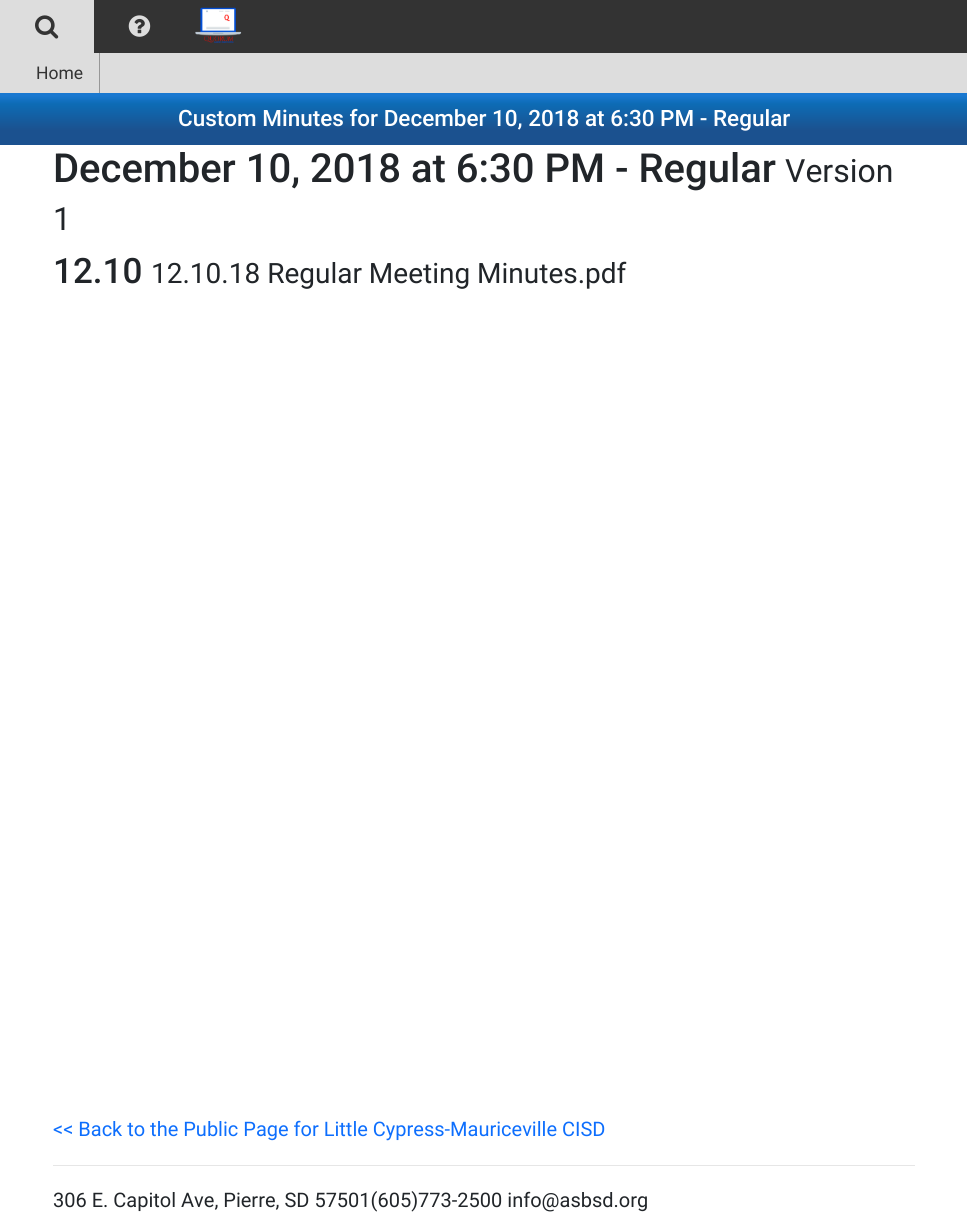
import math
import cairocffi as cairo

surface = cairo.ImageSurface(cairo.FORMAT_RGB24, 967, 1214)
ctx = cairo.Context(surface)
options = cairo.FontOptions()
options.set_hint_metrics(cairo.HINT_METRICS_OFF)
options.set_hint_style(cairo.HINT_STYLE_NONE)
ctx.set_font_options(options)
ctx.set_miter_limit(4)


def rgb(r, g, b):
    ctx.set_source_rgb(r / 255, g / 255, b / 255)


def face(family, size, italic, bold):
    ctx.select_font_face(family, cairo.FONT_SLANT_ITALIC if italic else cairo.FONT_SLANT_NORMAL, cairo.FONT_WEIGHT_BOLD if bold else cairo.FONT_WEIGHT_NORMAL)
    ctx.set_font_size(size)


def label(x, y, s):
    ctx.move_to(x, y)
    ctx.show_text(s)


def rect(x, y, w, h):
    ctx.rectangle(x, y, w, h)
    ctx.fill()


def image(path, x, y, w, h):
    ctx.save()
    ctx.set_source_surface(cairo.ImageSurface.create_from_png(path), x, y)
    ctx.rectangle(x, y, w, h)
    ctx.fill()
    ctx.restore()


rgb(255, 255, 255)
ctx.paint()
rgb(51, 51, 51)
rect(94, 0, 873, 53)
rgb(221, 221, 221)
rect(0, 0, 94, 53)
image('image0.png', 35, 15, 24, 24)
image('image1.png', 128, 15, 23, 22)
image('image2.png', 195, 7, 47, 36)
rect(0, 53, 967, 40)
rgb(151, 151, 151)
rect(99, 53, 1, 40)
face('Roboto', 17.5, 0, 0)
rgb(51, 51, 51)
label(36, 79, 'Home')
gradient = cairo.LinearGradient(484, 145, 484, 93)
gradient.add_color_stop_rgba(0.29, 0.106, 0.318, 0.561, 1)
gradient.add_color_stop_rgba(0.79, 0.051, 0.42, 0.71, 1)
gradient.add_color_stop_rgba(0.95, 0.098, 0.471, 0.816, 1)
ctx.set_source(gradient)
rect(0, 93, 967, 52)
face('Roboto Medium', 22.5, 0, 0)
rgb(255, 255, 255)
label(178, 126, 'Custom Minutes for December 10, 2018 at 6:30 PM - Regular')
face('Roboto Medium', 40, 0, 0)
rgb(33, 37, 41)
label(53, 182, 'December 10, 2018 at 6:30 PM - Regular')
face('Roboto', 32, 0, 0)
label(785, 182, 'Version')
label(53, 230, '1')
face('Roboto Medium', 35, 0, 0)
label(53, 283, '12.10')
face('Roboto', 28, 0, 0)
label(151, 283, '12.10.18 Regular Meeting Minutes.pdf')
face('Roboto', 20, 0, 0)
rgb(13, 110, 253)
label(53, 1136, '<< Back to the Public Page for Little Cypress-Mauriceville CISD')
rgb(230, 230, 230)
rect(53, 1165, 862, 1)
rgb(33, 37, 41)
label(53, 1207, '306 E. Capitol Ave, Pierre, SD 57501(605)773-2500 info@asbsd.org')
surface.write_to_png('render.png')
